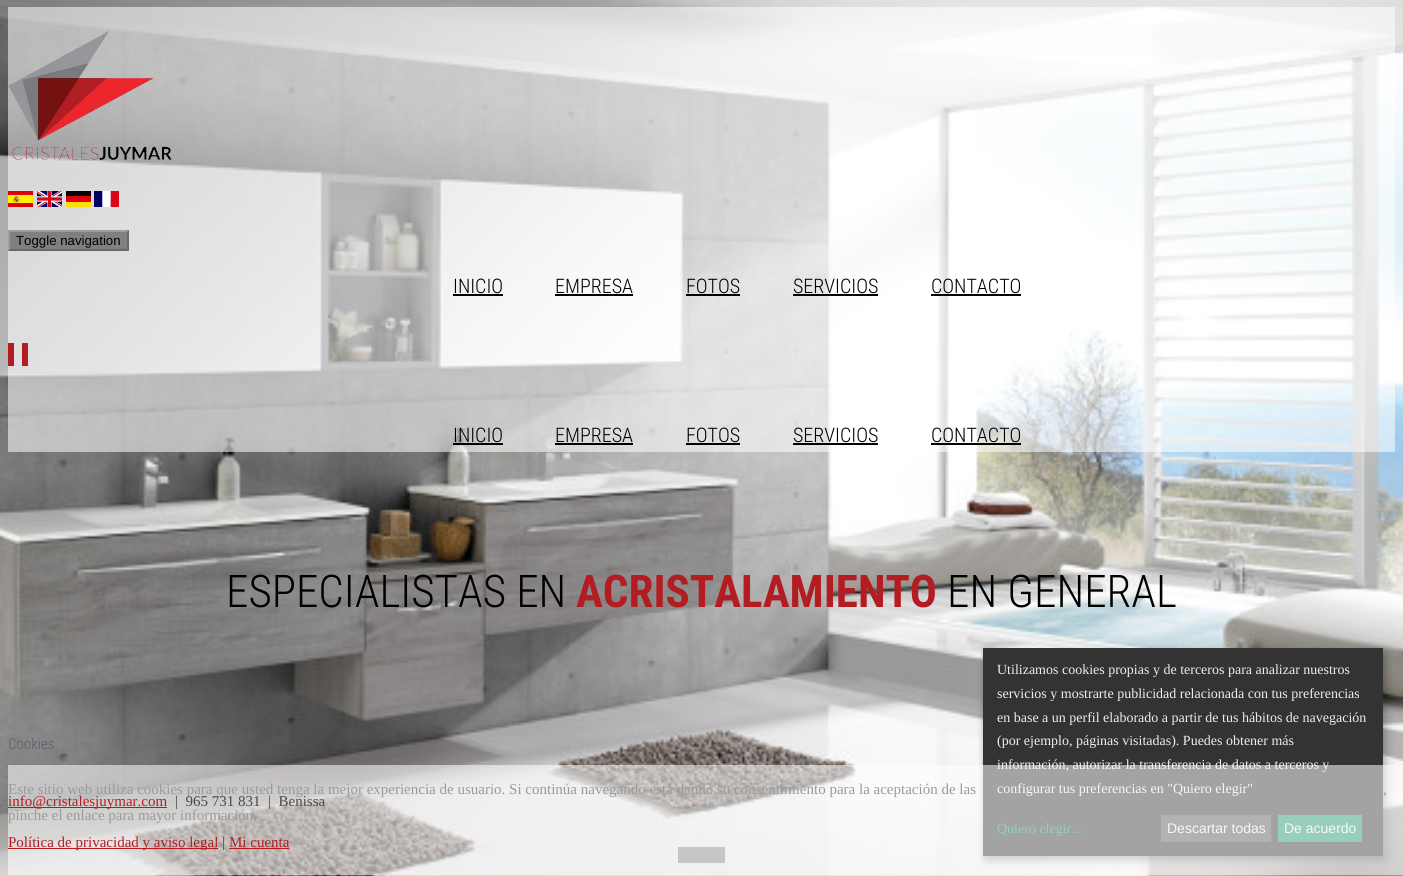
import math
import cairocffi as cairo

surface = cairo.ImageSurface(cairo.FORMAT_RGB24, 1403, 876)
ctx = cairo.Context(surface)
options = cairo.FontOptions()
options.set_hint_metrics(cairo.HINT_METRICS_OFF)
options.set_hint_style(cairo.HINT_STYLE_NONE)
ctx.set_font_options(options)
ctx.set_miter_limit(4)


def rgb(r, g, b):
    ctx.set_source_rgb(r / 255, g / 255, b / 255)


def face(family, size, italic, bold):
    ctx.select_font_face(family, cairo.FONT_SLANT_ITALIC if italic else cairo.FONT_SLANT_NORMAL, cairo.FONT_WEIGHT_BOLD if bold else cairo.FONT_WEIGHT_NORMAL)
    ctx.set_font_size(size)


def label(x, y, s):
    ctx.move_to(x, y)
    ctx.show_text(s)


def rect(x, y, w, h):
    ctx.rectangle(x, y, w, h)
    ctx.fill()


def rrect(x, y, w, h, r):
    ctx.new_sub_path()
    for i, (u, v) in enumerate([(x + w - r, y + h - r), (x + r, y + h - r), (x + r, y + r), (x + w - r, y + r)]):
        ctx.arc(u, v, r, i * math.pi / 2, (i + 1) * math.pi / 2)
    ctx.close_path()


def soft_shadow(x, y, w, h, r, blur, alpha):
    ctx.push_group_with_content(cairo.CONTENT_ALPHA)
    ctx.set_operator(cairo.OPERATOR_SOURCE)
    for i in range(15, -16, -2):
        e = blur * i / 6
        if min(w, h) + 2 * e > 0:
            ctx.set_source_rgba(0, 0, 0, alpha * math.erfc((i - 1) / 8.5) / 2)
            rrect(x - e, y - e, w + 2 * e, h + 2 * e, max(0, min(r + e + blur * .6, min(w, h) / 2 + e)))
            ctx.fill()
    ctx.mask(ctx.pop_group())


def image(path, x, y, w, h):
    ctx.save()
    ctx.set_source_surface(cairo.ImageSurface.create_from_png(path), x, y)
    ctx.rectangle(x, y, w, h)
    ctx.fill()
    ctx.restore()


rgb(255, 255, 255)
ctx.paint()
image('image0.png', 0, 0, 1403, 876)
ctx.set_source_rgba(1, 1, 1, 0.55)
rect(8, 7, 1387, 445)
image('image1.png', 8, 31, 164, 129)
image('image2.png', 8, 191, 25, 16)
image('image3.png', 37, 191, 25, 16)
image('image4.png', 66, 191, 25, 16)
image('image5.png', 94, 191, 25, 16)
rgb(128, 128, 128)
rect(8, 230, 121, 21)
rgb(157, 157, 157)
ctx.new_path()
ctx.move_to(8, 230)
ctx.line_to(129, 230)
ctx.line_to(127, 232)
ctx.line_to(10, 232)
ctx.close_path()
ctx.fill()
rgb(105, 105, 105)
ctx.new_path()
ctx.move_to(129, 230)
ctx.line_to(129, 251)
ctx.line_to(127, 249)
ctx.line_to(127, 232)
ctx.close_path()
ctx.fill()
ctx.new_path()
ctx.move_to(129, 251)
ctx.line_to(8, 251)
ctx.line_to(10, 249)
ctx.line_to(127, 249)
ctx.close_path()
ctx.fill()
rgb(157, 157, 157)
ctx.new_path()
ctx.move_to(8, 251)
ctx.line_to(8, 230)
ctx.line_to(10, 232)
ctx.line_to(10, 249)
ctx.close_path()
ctx.fill()
face('Liberation Sans', 13.25, 0, 0)
rgb(0, 0, 0)
label(16, 245, 'Toggle navigation')
face('Roboto Condensed Light', 20, 0, 0)
label(453, 293, 'INICIO')
rect(453, 294, 50, 2)
label(555, 293, 'EMPRESA')
rect(555, 294, 78, 2)
label(686, 293, 'FOTOS')
rect(686, 294, 54, 2)
label(793, 293, 'SERVICIOS')
rect(793, 294, 85, 2)
label(931, 293, 'CONTACTO')
rect(931, 294, 90, 2)
rgb(179, 29, 34)
rect(8, 343, 6, 23)
rect(22, 343, 6, 23)
rgb(0, 0, 0)
label(453, 442, 'INICIO')
rect(453, 443, 50, 2)
label(555, 442, 'EMPRESA')
rect(555, 443, 78, 2)
label(686, 442, 'FOTOS')
rect(686, 443, 54, 2)
label(793, 442, 'SERVICIOS')
rect(793, 443, 85, 2)
label(931, 442, 'CONTACTO')
rect(931, 443, 90, 2)
face('Roboto Condensed Light', 45, 0, 0)
label(226, 607, 'ESPECIALISTAS EN')
face('Roboto Condensed', 45, 0, 1)
rgb(179, 29, 34)
label(576, 607, 'ACRISTALAMIENTO')
face('Roboto Condensed Light', 45, 0, 0)
rgb(0, 0, 0)
label(947, 607, 'EN GENERAL')
rgb(0, 0, 0)
soft_shadow(988, 653, 400, 208, 0, 5, 0.19)
soft_shadow(983, 652, 400, 208, 0, 3, 0.2)
rgb(51, 51, 51)
rect(983, 648, 400, 208)
face('Liberation Serif', 14, 0, 0)
rgb(238, 238, 238)
label(997, 769, 'información, autorizar la transferencia de datos a terceros y')
label(997, 793, 'configurar tus preferencias en "Quiero elegir"')
rgb(26, 147, 111)
label(997, 833, 'Quiero elegir...')
rgb(85, 85, 85)
rect(1161, 815, 110, 27)
face('Liberation Sans', 14, 0, 0)
rgb(238, 238, 238)
label(1167, 833, 'Descartar todas')
rgb(26, 147, 111)
rect(1278, 815, 84, 27)
rgb(238, 238, 238)
label(1284, 833, 'De acuerdo')
face('Liberation Serif', 15, 0, 0)
rgb(33, 32, 32)
label(8, 794, 'Este sitio web utiliza cookies para que usted tenga la mejor experiencia de usuario. Si continúa navegando está dando su consentimiento para la aceptación de las')
label(1383, 794, ',')
label(8, 820, 'pinche el enlace para mayor información')
rgb(128, 128, 128)
rect(678, 847, 47, 16)
ctx.set_source_rgba(1, 1, 1, 0.55)
rect(8, 765, 1395, 110)
rgb(179, 29, 34)
rect(8, 807, 159, 1)
label(8, 806, 'info@cristalesjuymar.com')
rgb(74, 74, 74)
label(175, 806, '|  965 731 831  |  Benissa')
rgb(179, 29, 34)
rect(8, 848, 210, 1)
label(8, 847, 'Política de privacidad y aviso legal')
rgb(74, 74, 74)
label(222, 847, '|')
rgb(179, 29, 34)
label(229, 847, 'Mi cuenta')
rect(229, 848, 60, 1)
face('Liberation Serif', 14, 0, 0)
rgb(238, 238, 238)
label(997, 674, 'Utilizamos cookies propias y de terceros para analizar nuestros')
label(997, 698, 'servicios y mostrarte publicidad relacionada con tus preferencias')
label(997, 722, 'en base a un perfil elaborado a partir de tus hábitos de navegación')
label(997, 745, '(por ejemplo, páginas visitadas). Puedes obtener más')
face('Roboto Condensed Light', 15, 0, 0)
rgb(88, 95, 105)
label(8, 749, 'Cookies')
surface.write_to_png('render.png')
